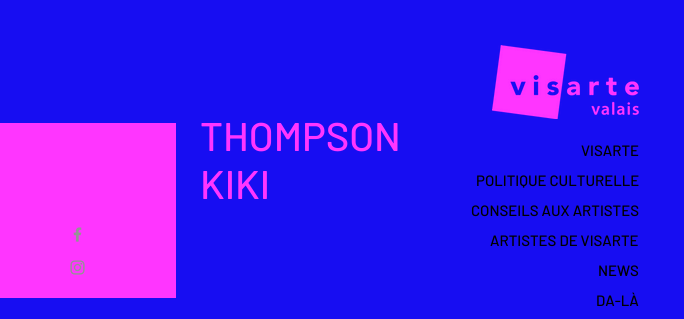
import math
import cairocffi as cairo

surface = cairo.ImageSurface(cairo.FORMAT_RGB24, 684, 319)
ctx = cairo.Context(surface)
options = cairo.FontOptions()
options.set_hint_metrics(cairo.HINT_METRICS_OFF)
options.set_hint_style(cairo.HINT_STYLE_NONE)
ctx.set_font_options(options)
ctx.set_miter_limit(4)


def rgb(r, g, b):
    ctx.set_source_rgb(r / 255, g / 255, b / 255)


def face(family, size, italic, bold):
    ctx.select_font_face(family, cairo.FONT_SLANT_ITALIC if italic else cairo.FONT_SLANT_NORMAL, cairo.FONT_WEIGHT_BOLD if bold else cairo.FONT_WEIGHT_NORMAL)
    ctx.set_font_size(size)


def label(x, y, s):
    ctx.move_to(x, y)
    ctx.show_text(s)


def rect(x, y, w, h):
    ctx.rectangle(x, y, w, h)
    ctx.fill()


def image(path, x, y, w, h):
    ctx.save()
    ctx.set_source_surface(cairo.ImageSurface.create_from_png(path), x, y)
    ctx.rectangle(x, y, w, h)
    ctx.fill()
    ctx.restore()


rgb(23, 13, 242)
ctx.paint()
rgb(255, 53, 255)
rect(0, 123, 176, 175)
image('image0.png', 73, 227, 9, 15)
image('image1.png', 70, 260, 15, 15)
face('Barlow Medium', 40, 0, 0)
label(200, 151, 'THOMPSON')
label(200, 199, 'KIKI')
image('image2.png', 492, 45, 147, 74)
face('Barlow Medium', 15, 0, 0)
rgb(0, 0, 0)
label(581, 156, 'VISARTE')
label(476, 186, 'POLITIQUE CULTURELLE')
label(471, 216, 'CONSEILS AUX ARTISTES')
label(490, 246, 'ARTISTES DE VISARTE')
label(598, 276, 'NEWS')
label(596, 306, 'DA-LÀ')
surface.write_to_png('render.png')
